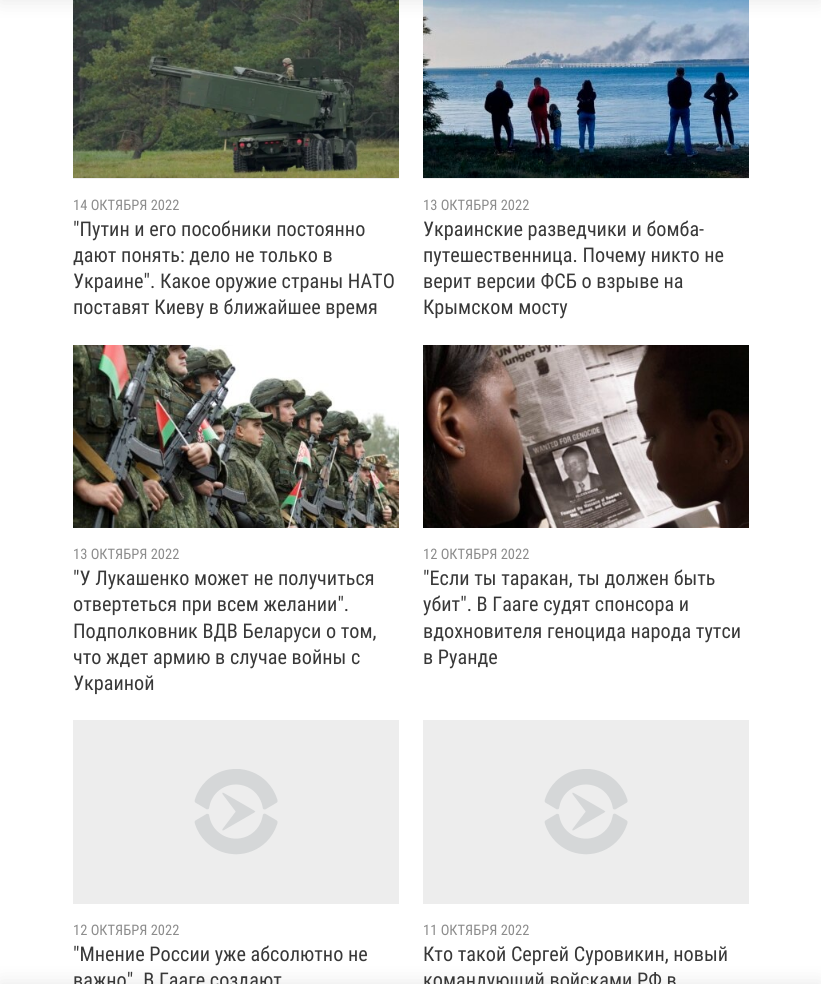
import math
import cairocffi as cairo

surface = cairo.ImageSurface(cairo.FORMAT_RGB24, 821, 984)
ctx = cairo.Context(surface)
options = cairo.FontOptions()
options.set_hint_metrics(cairo.HINT_METRICS_OFF)
options.set_hint_style(cairo.HINT_STYLE_NONE)
ctx.set_font_options(options)
ctx.set_miter_limit(4)


def rgb(r, g, b):
    ctx.set_source_rgb(r / 255, g / 255, b / 255)


def face(family, size, italic, bold):
    ctx.select_font_face(family, cairo.FONT_SLANT_ITALIC if italic else cairo.FONT_SLANT_NORMAL, cairo.FONT_WEIGHT_BOLD if bold else cairo.FONT_WEIGHT_NORMAL)
    ctx.set_font_size(size)


def label(x, y, s):
    ctx.move_to(x, y)
    ctx.show_text(s)


def rect(x, y, w, h):
    ctx.rectangle(x, y, w, h)
    ctx.fill()


def rrect(x, y, w, h, r):
    ctx.new_sub_path()
    for i, (u, v) in enumerate([(x + w - r, y + h - r), (x + r, y + h - r), (x + r, y + r), (x + w - r, y + r)]):
        ctx.arc(u, v, r, i * math.pi / 2, (i + 1) * math.pi / 2)
    ctx.close_path()


def soft_shadow(x, y, w, h, r, blur, alpha):
    ctx.push_group_with_content(cairo.CONTENT_ALPHA)
    ctx.set_operator(cairo.OPERATOR_SOURCE)
    for i in range(15, -16, -2):
        e = blur * i / 6
        if min(w, h) + 2 * e > 0:
            ctx.set_source_rgba(0, 0, 0, alpha * math.erfc((i - 1) / 8.5) / 2)
            rrect(x - e, y - e, w + 2 * e, h + 2 * e, max(0, min(r + e + blur * .6, min(w, h) / 2 + e)))
            ctx.fill()
    ctx.mask(ctx.pop_group())


def image(path, x, y, w, h):
    ctx.save()
    ctx.set_source_surface(cairo.ImageSurface.create_from_png(path), x, y)
    ctx.rectangle(x, y, w, h)
    ctx.fill()
    ctx.restore()


rgb(255, 255, 255)
ctx.paint()
image('image0.png', 73, 0, 326, 178)
image('image1.png', 423, 0, 326, 178)
rgb(0, 0, 0)
soft_shadow(0, -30, 821, 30, 0, 10, 0.1)
soft_shadow(0, 984, 821, 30, 0, 10, 0.1)
rgb(237, 237, 237)
rect(73, 178, 326, 1)
face('Roboto Condensed', 14.5, 0, 0)
rgb(140, 140, 140)
label(73, 210, '14 ОКТЯБРЯ 2022')
face('Roboto Condensed', 20.25, 0, 0)
rgb(56, 56, 56)
label(73, 236, '"Путин и его пособники постоянно')
label(73, 262, 'дают понять: дело не только в')
label(73, 288, 'Украине". Какое оружие страны НАТО')
label(73, 314, 'поставят Киеву в ближайшее время')
rgb(237, 237, 237)
rect(423, 178, 326, 1)
face('Roboto Condensed', 14.5, 0, 0)
rgb(140, 140, 140)
label(423, 210, '13 ОКТЯБРЯ 2022')
face('Roboto Condensed', 20.25, 0, 0)
rgb(56, 56, 56)
label(423, 236, 'Украинские разведчики и бомба-')
label(423, 262, 'путешественница. Почему никто не')
label(423, 288, 'верит версии ФСБ о взрыве на')
label(423, 314, 'Крымском мосту')
image('image2.png', 73, 345, 326, 183)
face('Roboto Condensed', 14.5, 0, 0)
rgb(140, 140, 140)
label(73, 559, '13 ОКТЯБРЯ 2022')
face('Roboto Condensed', 20.25, 0, 0)
rgb(56, 56, 56)
label(73, 585, '"У Лукашенко может не получиться')
label(73, 611, 'отвертеться при всем желании".')
label(73, 638, 'Подполковник ВДВ Беларуси о том,')
label(73, 664, 'что ждет армию в случае войны с')
label(73, 690, 'Украиной')
image('image3.png', 423, 345, 326, 183)
face('Roboto Condensed', 14.5, 0, 0)
rgb(140, 140, 140)
label(423, 559, '12 ОКТЯБРЯ 2022')
face('Roboto Condensed', 20.25, 0, 0)
rgb(56, 56, 56)
label(423, 585, '"Если ты таракан, ты должен быть')
label(423, 611, 'убит". В Гааге судят спонсора и')
label(423, 638, 'вдохновителя геноцида народа тутси')
label(423, 664, 'в Руанде')
rgb(237, 237, 237)
rect(73, 720, 326, 184)
image('image4.png', 194, 769, 84, 86)
face('Roboto Condensed', 14.5, 0, 0)
rgb(140, 140, 140)
label(73, 935, '12 ОКТЯБРЯ 2022')
face('Roboto Condensed', 20.25, 0, 0)
rgb(56, 56, 56)
label(73, 961, '"Мнение России уже абсолютно не')
label(73, 987, 'важно". В Гааге создают')
rgb(237, 237, 237)
rect(423, 720, 326, 184)
image('image4.png', 544, 769, 84, 86)
face('Roboto Condensed', 14.5, 0, 0)
rgb(140, 140, 140)
label(423, 935, '11 ОКТЯБРЯ 2022')
face('Roboto Condensed', 20.25, 0, 0)
rgb(56, 56, 56)
label(423, 961, 'Кто такой Сергей Суровикин, новый')
label(423, 987, 'командующий войсками РФ в')
surface.write_to_png('render.png')
